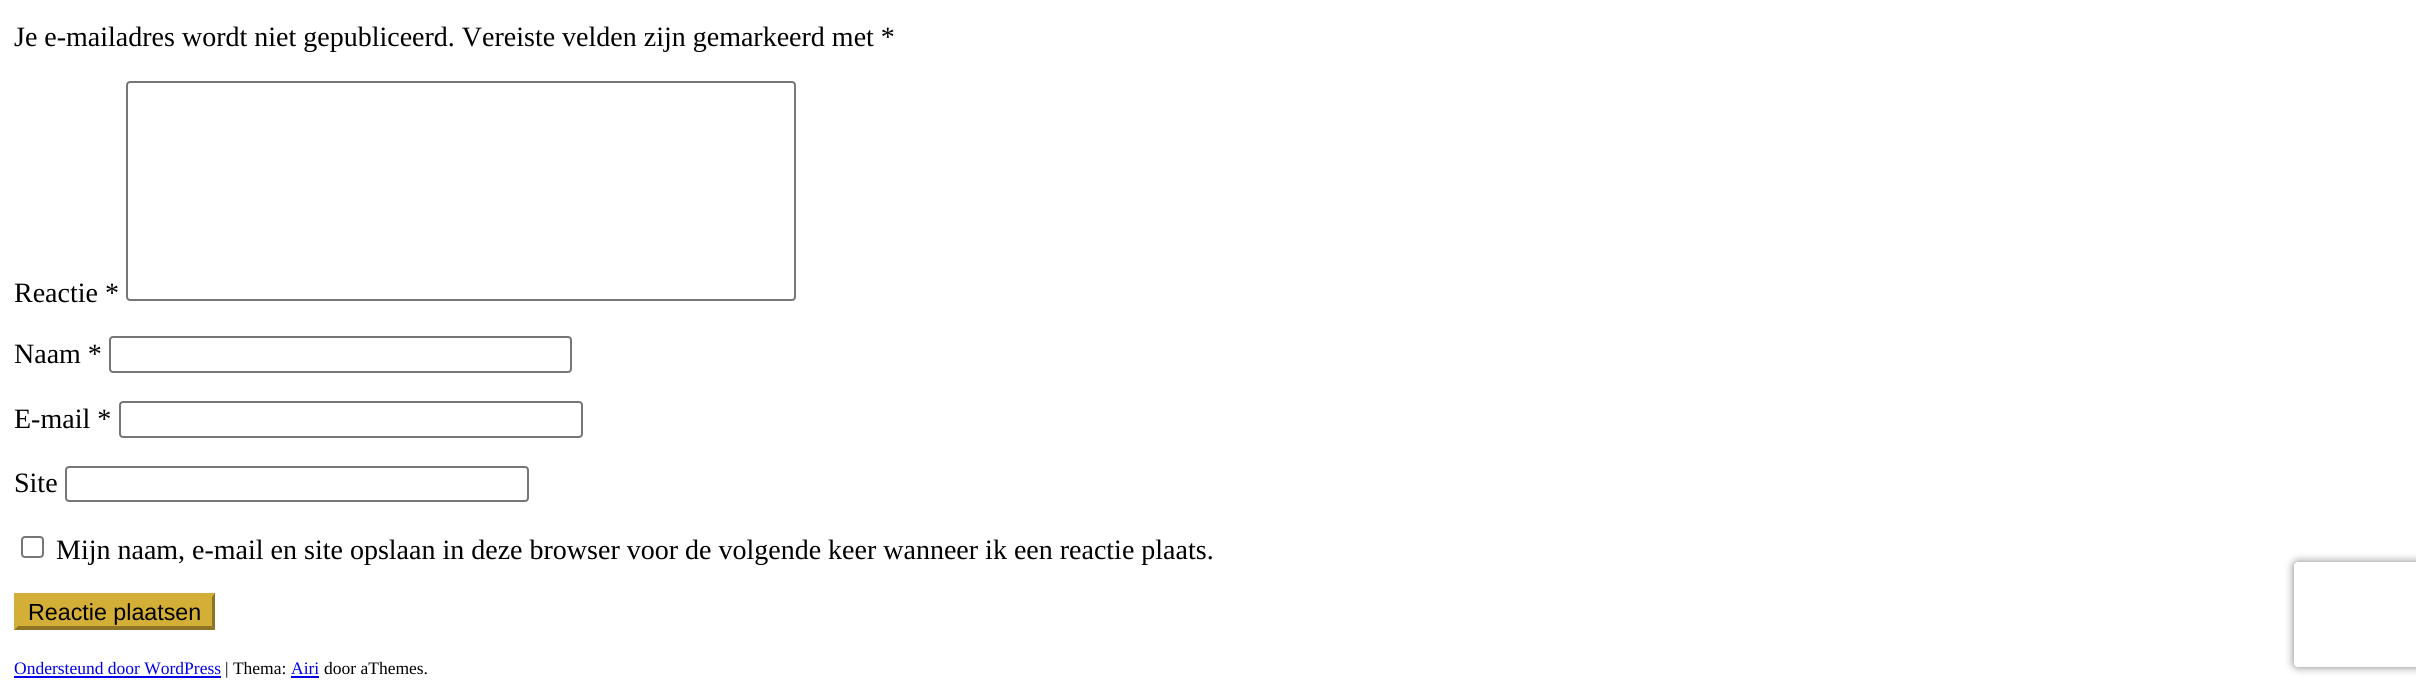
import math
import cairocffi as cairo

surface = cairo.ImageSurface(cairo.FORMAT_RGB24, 2416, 690)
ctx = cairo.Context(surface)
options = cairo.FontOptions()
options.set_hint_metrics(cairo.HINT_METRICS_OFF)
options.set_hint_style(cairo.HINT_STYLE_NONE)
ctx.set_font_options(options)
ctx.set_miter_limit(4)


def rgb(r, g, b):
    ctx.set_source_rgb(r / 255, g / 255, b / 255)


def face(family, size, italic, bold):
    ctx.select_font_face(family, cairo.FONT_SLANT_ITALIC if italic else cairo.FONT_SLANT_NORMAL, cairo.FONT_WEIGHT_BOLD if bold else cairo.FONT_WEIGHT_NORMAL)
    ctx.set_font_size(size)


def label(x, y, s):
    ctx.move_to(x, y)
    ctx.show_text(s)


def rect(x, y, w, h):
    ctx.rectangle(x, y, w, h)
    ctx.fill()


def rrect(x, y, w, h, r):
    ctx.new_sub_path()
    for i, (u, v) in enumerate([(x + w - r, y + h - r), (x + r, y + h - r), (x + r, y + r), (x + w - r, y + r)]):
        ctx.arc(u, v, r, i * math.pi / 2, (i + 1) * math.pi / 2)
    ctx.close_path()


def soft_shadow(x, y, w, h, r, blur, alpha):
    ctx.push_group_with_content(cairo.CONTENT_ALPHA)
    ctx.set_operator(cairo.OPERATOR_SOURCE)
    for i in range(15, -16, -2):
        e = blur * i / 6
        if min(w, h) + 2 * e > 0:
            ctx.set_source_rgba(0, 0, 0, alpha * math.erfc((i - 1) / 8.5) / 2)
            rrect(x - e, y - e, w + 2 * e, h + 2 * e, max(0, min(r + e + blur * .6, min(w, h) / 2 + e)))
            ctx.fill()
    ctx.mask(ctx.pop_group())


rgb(255, 255, 255)
ctx.paint()
face('Liberation Serif', 28, 0, 0)
rgb(0, 0, 0)
label(14, 46, 'Je e-mailadres wordt niet gepubliceerd. Vereiste velden zijn gemarkeerd met *')
label(14, 302, 'Reactie *')
rrect(127, 82, 668, 218, 3)
rgb(118, 118, 118)
ctx.stroke()
rgb(0, 0, 0)
label(14, 363, 'Naam *')
rrect(110, 337, 461, 35, 3)
rgb(118, 118, 118)
ctx.stroke()
rgb(0, 0, 0)
label(14, 428, 'E-mail *')
rrect(120, 402, 462, 35, 3)
rgb(118, 118, 118)
ctx.stroke()
rgb(0, 0, 0)
label(14, 492, 'Site')
rrect(66, 467, 462, 34, 3)
rgb(118, 118, 118)
ctx.stroke()
rrect(22, 537, 21, 20, 3)
ctx.stroke()
rgb(0, 0, 0)
label(56, 559, 'Mijn naam, e-mail en site opslaan in deze browser voor de volgende keer wanneer ik een reactie plaats.')
rgb(212, 175, 55)
rect(14, 593, 201, 37)
rgb(141, 117, 37)
ctx.new_path()
ctx.move_to(215, 593)
ctx.line_to(215, 630)
ctx.line_to(212, 626.5)
ctx.line_to(212, 597)
ctx.close_path()
ctx.fill()
ctx.new_path()
ctx.move_to(215, 630)
ctx.line_to(14, 630)
ctx.line_to(18, 626)
ctx.line_to(212, 626)
ctx.close_path()
ctx.fill()
rgb(212, 175, 55)
ctx.new_path()
ctx.move_to(14, 630)
ctx.line_to(14, 593)
ctx.line_to(17.5, 597)
ctx.line_to(17.5, 626.5)
ctx.close_path()
ctx.fill()
face('Liberation Sans', 23.25, 0, 0)
rgb(0, 0, 0)
label(28, 620, 'Reactie plaatsen')
face('Liberation Serif', 17.5, 0, 0)
rgb(0, 0, 238)
label(14, 674, 'Ondersteund door WordPress')
rect(14, 676, 207, 2)
rgb(0, 0, 0)
label(225, 674, '| Thema:')
rgb(0, 0, 238)
label(291, 674, 'Airi')
rect(291, 676, 28, 2)
rgb(0, 0, 0)
label(324, 674, 'door aThemes.')
ctx.save()
ctx.set_fill_rule(cairo.FILL_RULE_EVEN_ODD)
ctx.new_path()
ctx.move_to(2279, 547)
ctx.line_to(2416, 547)
ctx.line_to(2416, 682)
ctx.line_to(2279, 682)
ctx.close_path()
ctx.move_to(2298, 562)
ctx.line_to(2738, 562)
ctx.curve_to(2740, 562, 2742, 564, 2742, 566)
ctx.line_to(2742, 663)
ctx.curve_to(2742, 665, 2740, 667, 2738, 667)
ctx.line_to(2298, 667)
ctx.curve_to(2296, 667, 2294, 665, 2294, 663)
ctx.line_to(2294, 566)
ctx.curve_to(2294, 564, 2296, 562, 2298, 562)
ctx.close_path()
ctx.clip()
rgb(128, 128, 128)
soft_shadow(2294, 562, 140, 105, 4, 4.5, 1)
ctx.restore()
surface.write_to_png('render.png')
